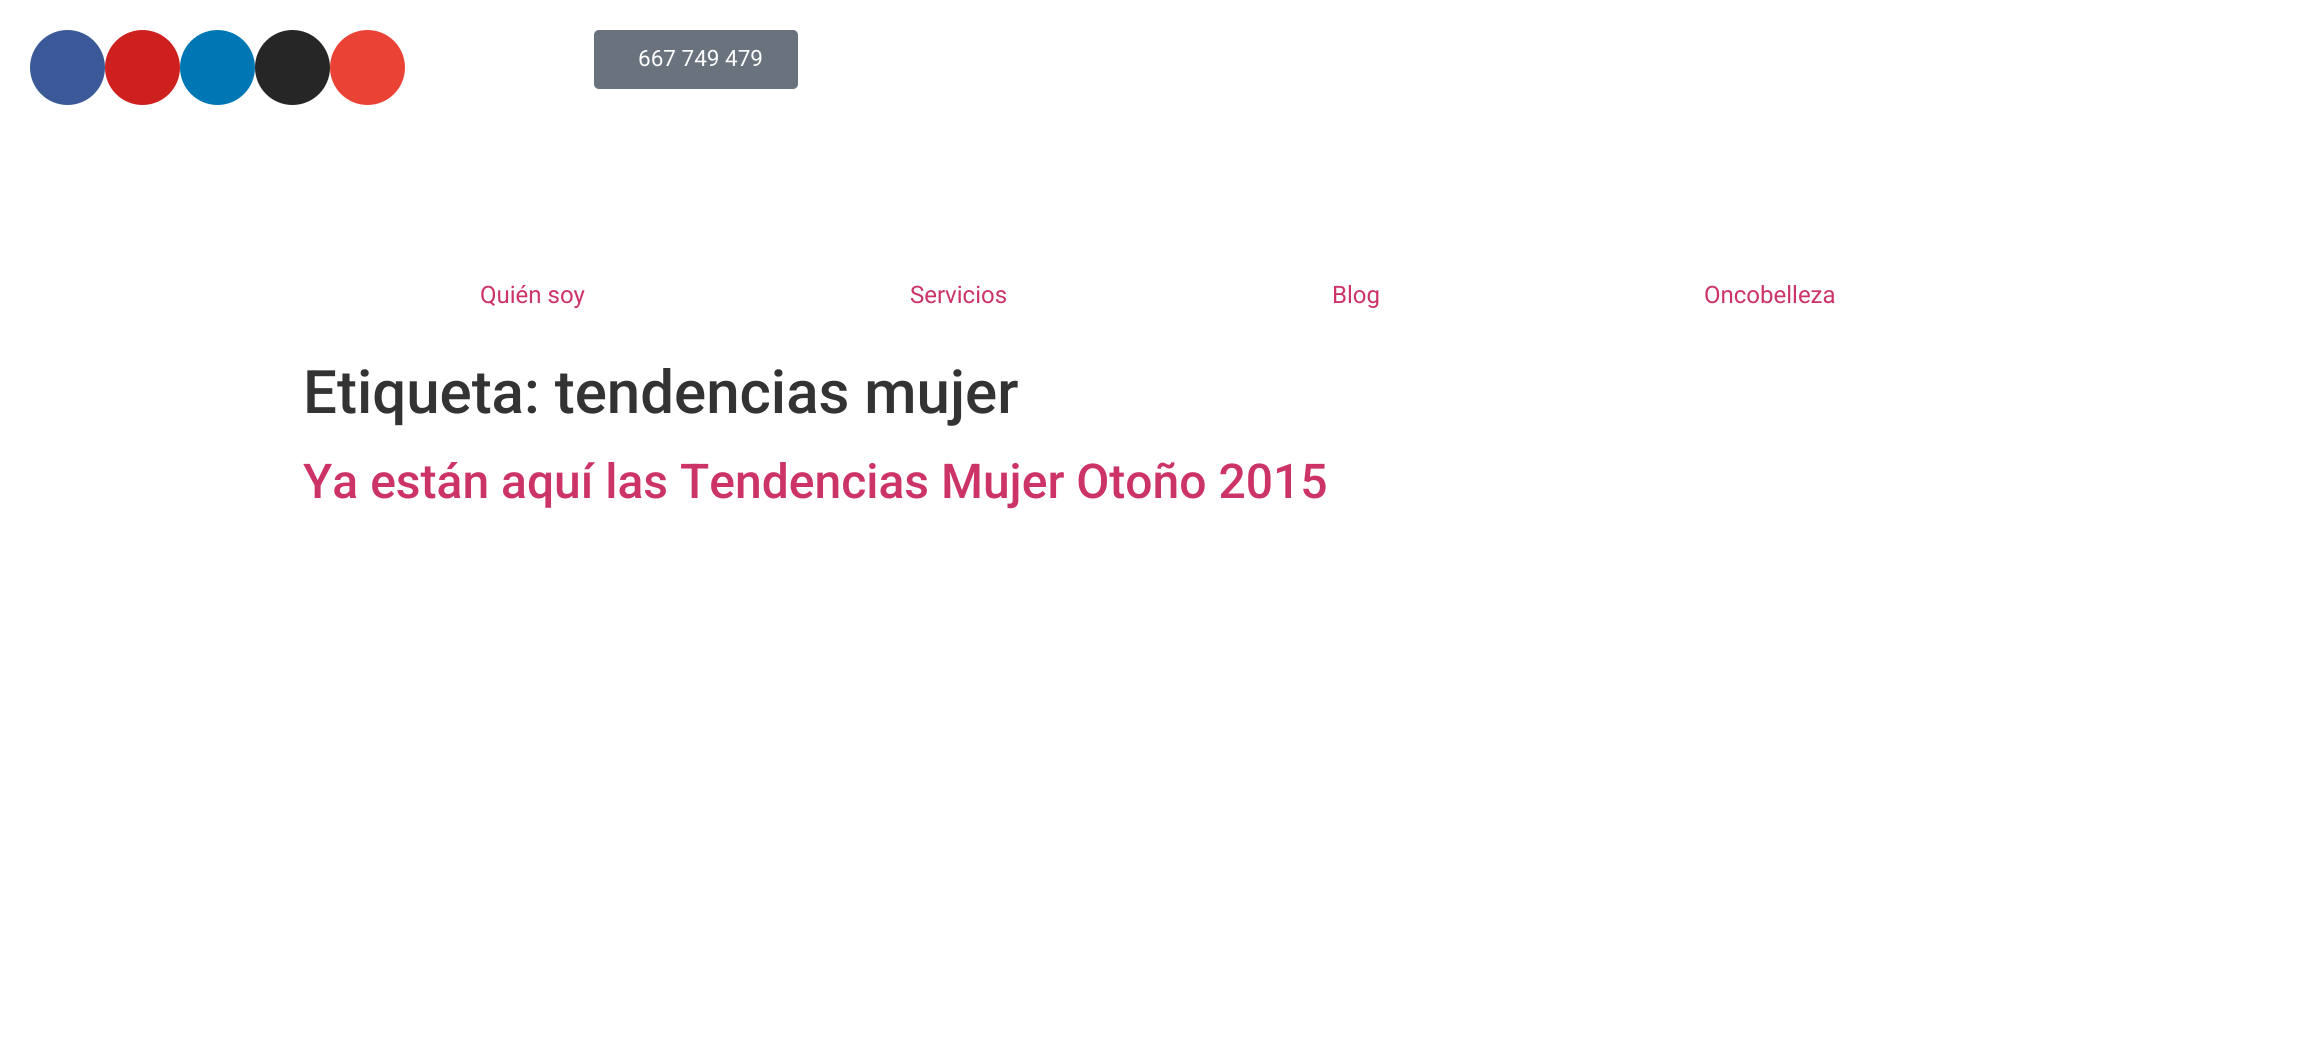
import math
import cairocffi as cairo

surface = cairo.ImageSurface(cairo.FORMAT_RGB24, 2315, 1041)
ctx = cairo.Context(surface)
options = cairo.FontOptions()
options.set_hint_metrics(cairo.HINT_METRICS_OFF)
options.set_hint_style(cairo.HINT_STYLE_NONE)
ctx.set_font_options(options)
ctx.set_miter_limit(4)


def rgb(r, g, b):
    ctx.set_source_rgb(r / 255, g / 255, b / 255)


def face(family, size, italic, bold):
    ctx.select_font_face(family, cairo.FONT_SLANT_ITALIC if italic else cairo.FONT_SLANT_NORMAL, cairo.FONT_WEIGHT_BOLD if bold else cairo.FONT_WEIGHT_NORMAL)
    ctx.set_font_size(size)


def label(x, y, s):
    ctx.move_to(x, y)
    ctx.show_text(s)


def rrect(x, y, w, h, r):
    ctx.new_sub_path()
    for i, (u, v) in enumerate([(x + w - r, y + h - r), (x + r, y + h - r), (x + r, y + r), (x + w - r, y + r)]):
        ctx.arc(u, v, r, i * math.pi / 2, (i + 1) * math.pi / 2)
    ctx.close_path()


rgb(255, 255, 255)
ctx.paint()
rgb(59, 89, 152)
ctx.arc(67.5, 67.5, 37.5, 0, 2 * math.pi)
ctx.fill()
rgb(205, 32, 31)
ctx.arc(142.5, 67.5, 37.5, 0, 2 * math.pi)
ctx.fill()
rgb(0, 119, 181)
ctx.arc(217.5, 67.5, 37.5, 0, 2 * math.pi)
ctx.fill()
rgb(38, 38, 38)
ctx.arc(292.5, 67.5, 37.5, 0, 2 * math.pi)
ctx.fill()
rgb(234, 67, 53)
ctx.arc(367.5, 67.5, 37.5, 0, 2 * math.pi)
ctx.fill()
rgb(105, 114, 125)
rrect(594, 30, 204, 59, 5)
ctx.fill()
face('Roboto', 22.5, 0, 0)
rgb(255, 255, 255)
label(638, 66, '667 749 479')
face('Roboto', 24, 0, 0)
rgb(204, 51, 102)
label(480, 303, 'Quién soy')
label(910, 303, 'Servicios')
label(1332, 303, 'Blog')
label(1704, 303, 'Oncobelleza')
face('Roboto Medium', 60, 0, 0)
rgb(51, 51, 51)
label(303, 413, 'Etiqueta: tendencias mujer')
face('Roboto Medium', 48, 0, 0)
rgb(204, 51, 102)
label(303, 498, 'Ya están aquí las Tendencias Mujer Otoño 2015')
surface.write_to_png('render.png')
